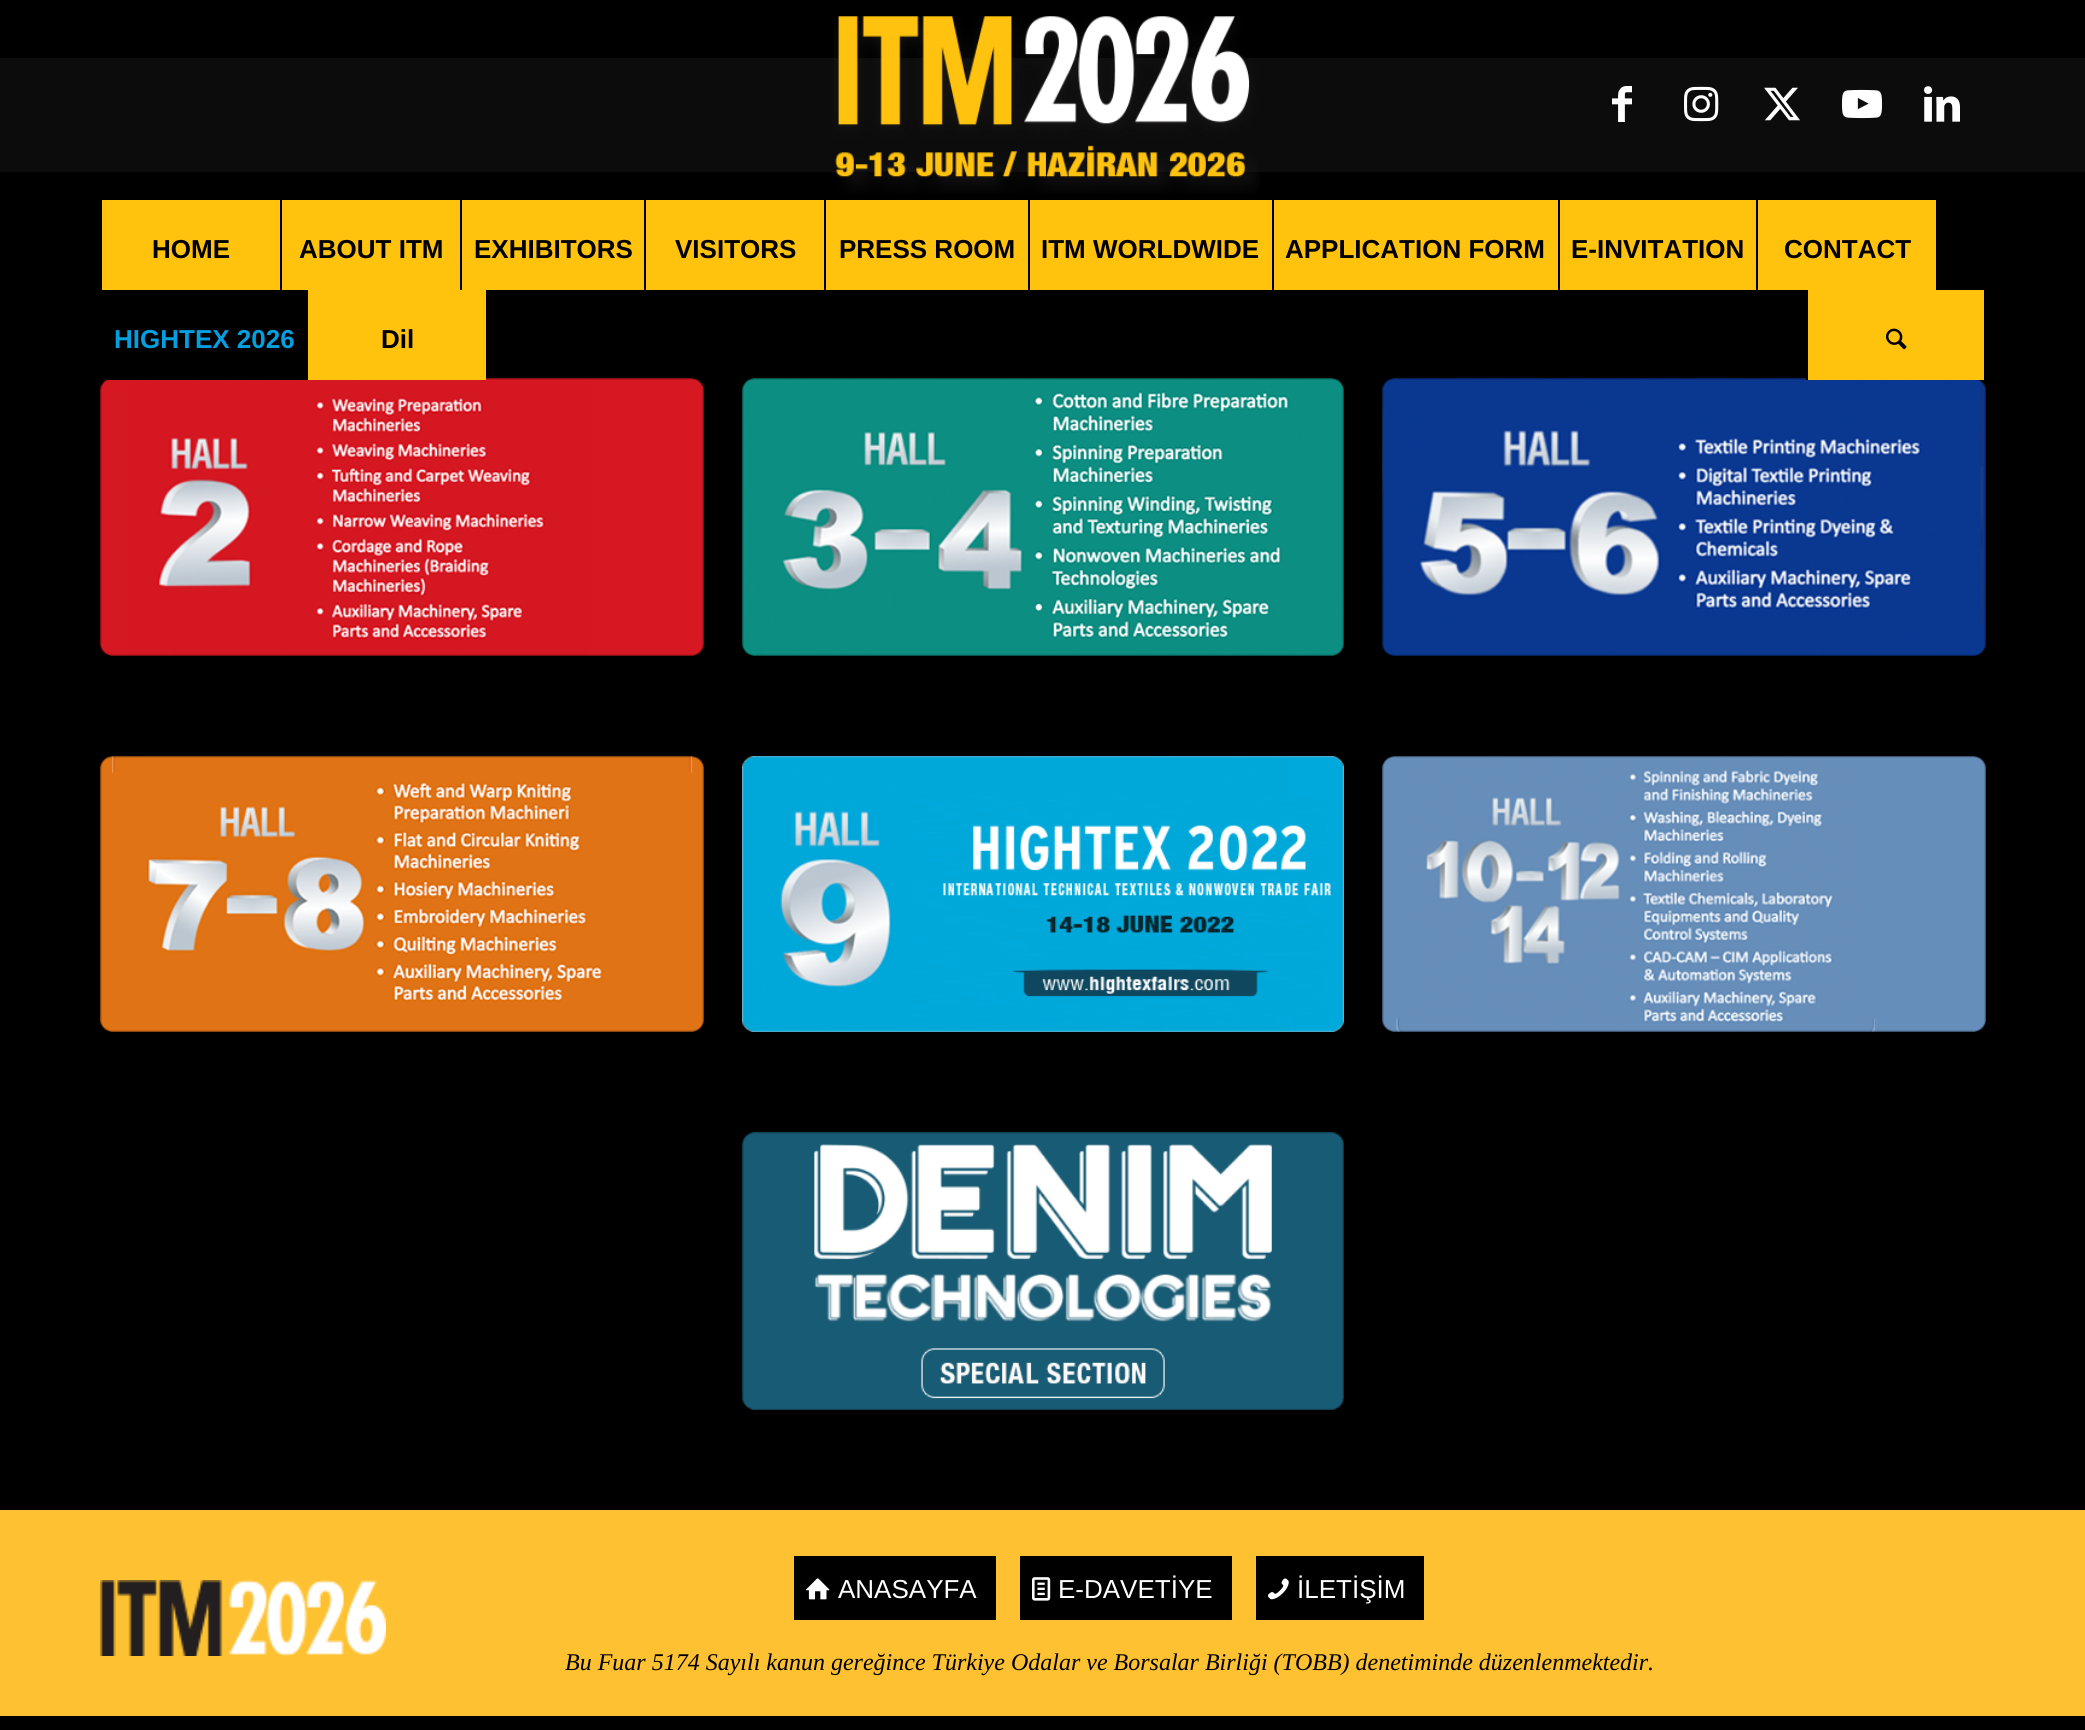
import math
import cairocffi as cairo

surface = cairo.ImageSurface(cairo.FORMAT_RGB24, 2085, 1730)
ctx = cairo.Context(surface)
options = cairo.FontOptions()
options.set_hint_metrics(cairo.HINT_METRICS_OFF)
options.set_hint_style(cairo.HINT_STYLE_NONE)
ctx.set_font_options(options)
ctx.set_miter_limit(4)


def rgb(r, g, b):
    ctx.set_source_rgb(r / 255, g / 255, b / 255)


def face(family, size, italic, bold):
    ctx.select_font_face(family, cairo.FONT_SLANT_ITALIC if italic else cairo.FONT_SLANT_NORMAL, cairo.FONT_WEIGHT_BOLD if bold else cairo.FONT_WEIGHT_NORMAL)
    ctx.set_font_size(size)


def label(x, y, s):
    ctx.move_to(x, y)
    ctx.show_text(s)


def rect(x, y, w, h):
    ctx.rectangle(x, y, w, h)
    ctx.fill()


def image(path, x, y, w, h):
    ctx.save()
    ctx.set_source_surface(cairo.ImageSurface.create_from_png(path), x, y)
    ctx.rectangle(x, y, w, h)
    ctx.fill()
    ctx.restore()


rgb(0, 0, 0)
ctx.paint()
rgb(255, 255, 255)
rect(0, 58, 2085, 114)
ctx.set_source_rgba(0, 0, 0, 0.95)
rect(0, 58, 2085, 114)
image('image0.png', 833, 16, 427, 178)
image('image1.png', 1612, 86, 20, 36)
image('image2.png', 1684, 86, 35, 36)
image('image3.png', 1764, 87, 36, 34)
image('image4.png', 1842, 89, 40, 30)
image('image5.png', 1924, 86, 36, 36)
rgb(255, 195, 14)
rect(102, 200, 178, 90)
face('Liberation Sans', 26, 0, 1)
rgb(0, 0, 0)
label(152, 258, 'HOME')
rgb(255, 195, 14)
rect(282, 200, 178, 90)
rgb(0, 0, 0)
label(299, 258, 'ABOUT ITM')
rgb(255, 195, 14)
rect(462, 200, 182, 90)
rgb(0, 0, 0)
label(474, 258, 'EXHIBITORS')
rgb(255, 195, 14)
rect(646, 200, 178, 90)
rgb(0, 0, 0)
label(675, 258, 'VISITORS')
rgb(255, 195, 14)
rect(826, 200, 202, 90)
rgb(0, 0, 0)
label(839, 258, 'PRESS ROOM')
rgb(255, 195, 14)
rect(1030, 200, 242, 90)
rgb(0, 0, 0)
label(1041, 258, 'ITM WORLDWIDE')
rgb(255, 195, 14)
rect(1274, 200, 284, 90)
rgb(0, 0, 0)
label(1285, 258, 'APPLICATION FORM')
rgb(255, 195, 14)
rect(1560, 200, 196, 90)
rgb(0, 0, 0)
label(1571, 258, 'E-INVITATION')
rgb(255, 195, 14)
rect(1758, 200, 178, 90)
rgb(0, 0, 0)
label(1784, 258, 'CONTACT')
image('image7.png', 100, 378, 604, 278)
rect(106, 378, 202, 2)
rgb(3, 159, 223)
label(114, 348, 'HIGHTEX 2026')
rgb(255, 195, 14)
rect(308, 290, 178, 90)
rgb(0, 0, 0)
label(381, 348, 'Dil')
image('image9.png', 1382, 378, 604, 278)
rgb(255, 195, 14)
rect(1808, 290, 176, 90)
rgb(0, 0, 0)
rect(1806, 378, 2, 2)
image('image6.png', 1886, 328, 21, 22)
image('image8.png', 742, 378, 602, 278)
image('image10.png', 100, 756, 604, 276)
image('image11.png', 742, 756, 602, 276)
image('image12.png', 1382, 756, 604, 276)
image('image13.png', 742, 1132, 602, 278)
rgb(253, 193, 49)
rect(0, 1510, 2085, 206)
image('image14.png', 100, 1580, 286, 76)
rgb(0, 0, 0)
rect(794, 1556, 202, 64)
image('image15.png', 806, 1578, 24, 22)
face('Liberation Sans', 26, 0, 0)
rgb(255, 255, 255)
label(838, 1598, 'ANASAYFA')
rgb(0, 0, 0)
rect(1020, 1556, 212, 64)
image('image16.png', 1032, 1577, 19, 24)
rgb(255, 255, 255)
label(1058, 1598, 'E-DAVETİYE')
rgb(0, 0, 0)
rect(1256, 1556, 168, 64)
image('image17.png', 1268, 1578, 21, 22)
rgb(255, 255, 255)
label(1297, 1598, 'İLETİŞİM')
face('Liberation Serif', 24, 1, 0)
rgb(0, 0, 0)
label(565, 1670, 'Bu Fuar 5174 Sayılı kanun gereğince Türkiye Odalar ve Borsalar Birliği (TOBB) denetiminde düzenlenmektedir.')
surface.write_to_png('render.png')
